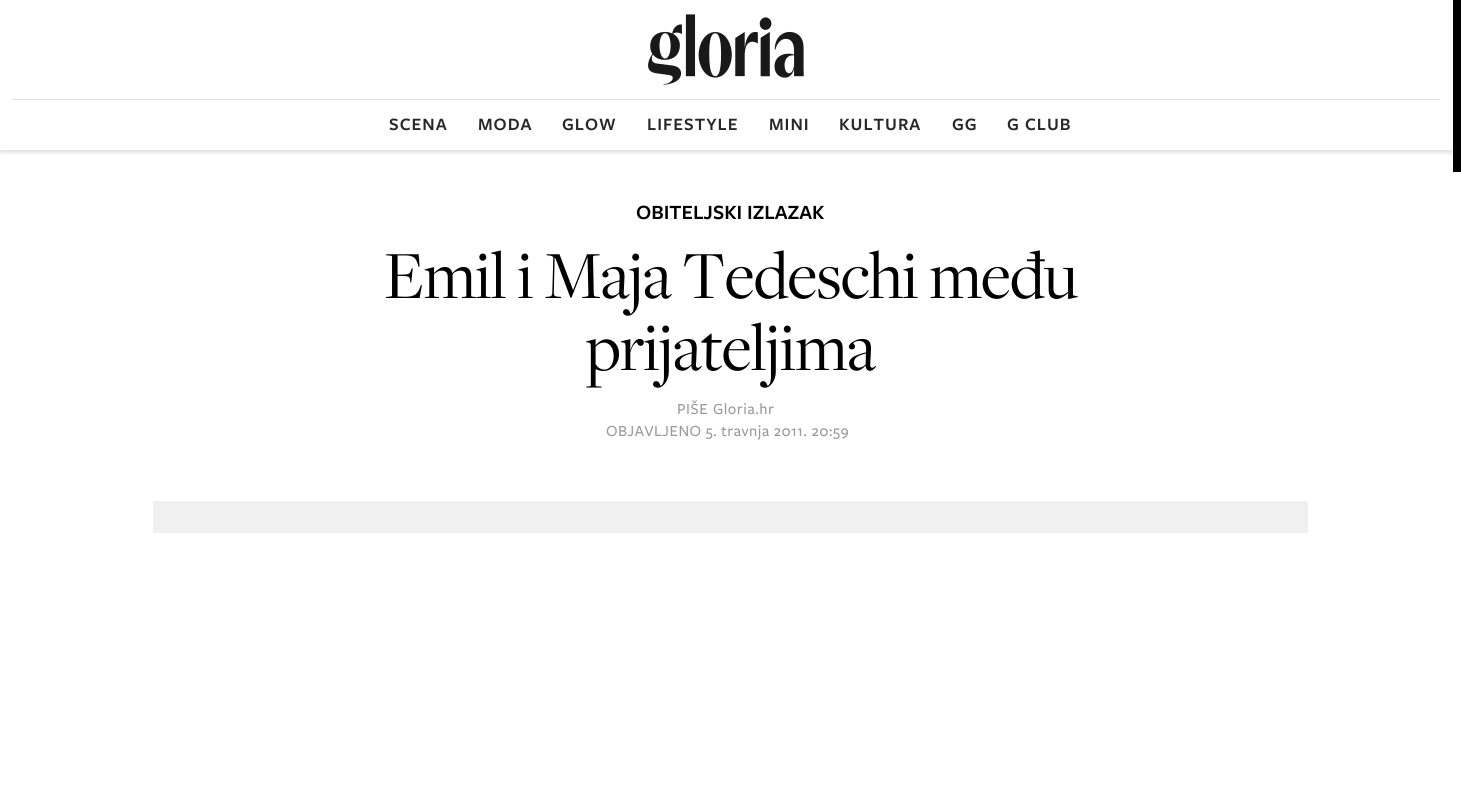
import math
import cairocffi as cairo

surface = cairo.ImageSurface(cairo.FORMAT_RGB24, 1461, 793)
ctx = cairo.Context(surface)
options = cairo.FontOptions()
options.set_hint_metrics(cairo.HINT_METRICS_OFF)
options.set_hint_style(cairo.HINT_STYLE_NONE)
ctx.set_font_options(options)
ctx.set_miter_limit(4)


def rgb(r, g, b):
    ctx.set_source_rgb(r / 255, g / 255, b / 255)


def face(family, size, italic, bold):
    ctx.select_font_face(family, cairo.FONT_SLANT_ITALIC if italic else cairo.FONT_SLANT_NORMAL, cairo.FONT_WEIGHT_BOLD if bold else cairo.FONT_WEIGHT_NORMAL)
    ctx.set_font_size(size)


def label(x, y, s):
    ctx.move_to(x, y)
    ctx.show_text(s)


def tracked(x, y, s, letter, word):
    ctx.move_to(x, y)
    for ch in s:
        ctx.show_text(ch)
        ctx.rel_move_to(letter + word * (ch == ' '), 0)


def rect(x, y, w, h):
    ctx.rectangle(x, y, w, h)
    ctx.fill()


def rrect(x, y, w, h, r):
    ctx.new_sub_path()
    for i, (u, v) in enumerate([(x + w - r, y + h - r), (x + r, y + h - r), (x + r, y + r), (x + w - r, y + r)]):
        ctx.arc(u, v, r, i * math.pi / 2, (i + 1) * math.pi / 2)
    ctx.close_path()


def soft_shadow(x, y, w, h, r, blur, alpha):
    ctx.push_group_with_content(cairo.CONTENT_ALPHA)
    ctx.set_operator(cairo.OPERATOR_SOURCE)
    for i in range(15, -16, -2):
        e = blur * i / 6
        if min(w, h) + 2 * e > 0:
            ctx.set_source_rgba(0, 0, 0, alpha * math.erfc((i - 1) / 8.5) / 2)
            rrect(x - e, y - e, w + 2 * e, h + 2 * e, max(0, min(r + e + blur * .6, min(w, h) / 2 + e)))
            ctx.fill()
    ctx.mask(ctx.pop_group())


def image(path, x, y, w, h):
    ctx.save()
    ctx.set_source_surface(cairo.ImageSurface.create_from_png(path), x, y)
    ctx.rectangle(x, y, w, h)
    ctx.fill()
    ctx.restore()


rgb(255, 255, 255)
ctx.paint()
ctx.save()
ctx.rectangle(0, 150, 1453, 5)
ctx.clip()
rgb(0, 0, 0)
soft_shadow(0, 2, 1461, 150, 0, 3, 0.15)
ctx.restore()
rgb(221, 221, 221)
rect(12, 99, 1428, 1)
image('image0.png', 648, 14, 156, 71)
face('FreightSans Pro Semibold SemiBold', 18, 0, 0)
rgb(39, 39, 39)
tracked(389, 130, 'SCENA', 1, 0)
tracked(478, 130, 'MODA', 1, 0)
tracked(562, 130, 'GLOW', 1, 0)
tracked(647, 130, 'LIFESTYLE', 1, 0)
tracked(769, 130, 'MINI', 1, 0)
tracked(839, 130, 'KULTURA', 1, 0)
tracked(952, 130, 'GG', 1, 0)
tracked(1007, 130, 'G CLUB', 1, 0)
rgb(1, 1, 1)
rect(1453, 0, 8, 172)
face('FreightSans Pro Semibold SemiBold', 21, 0, 0)
rgb(0, 0, 0)
label(636, 219, 'OBITELJSKI IZLAZAK')
face('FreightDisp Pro', 70, 0, 0)
tracked(384, 298, 'Emil i Maja Tedeschi među', -1, 0)
tracked(586, 370, 'prijateljima', -1, 0)
face('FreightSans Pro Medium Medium', 16, 0, 0)
rgb(153, 153, 153)
tracked(677, 414, 'PIŠE', 0.5, 0)
tracked(713, 414, 'Gloria.hr', 0.5, 0)
tracked(606, 436, 'OBJAVLJENO 5. travnja 2011. 20:59', 0.5, 0)
rgb(240, 240, 240)
rect(153, 501, 1155, 32)
surface.write_to_png('render.png')
